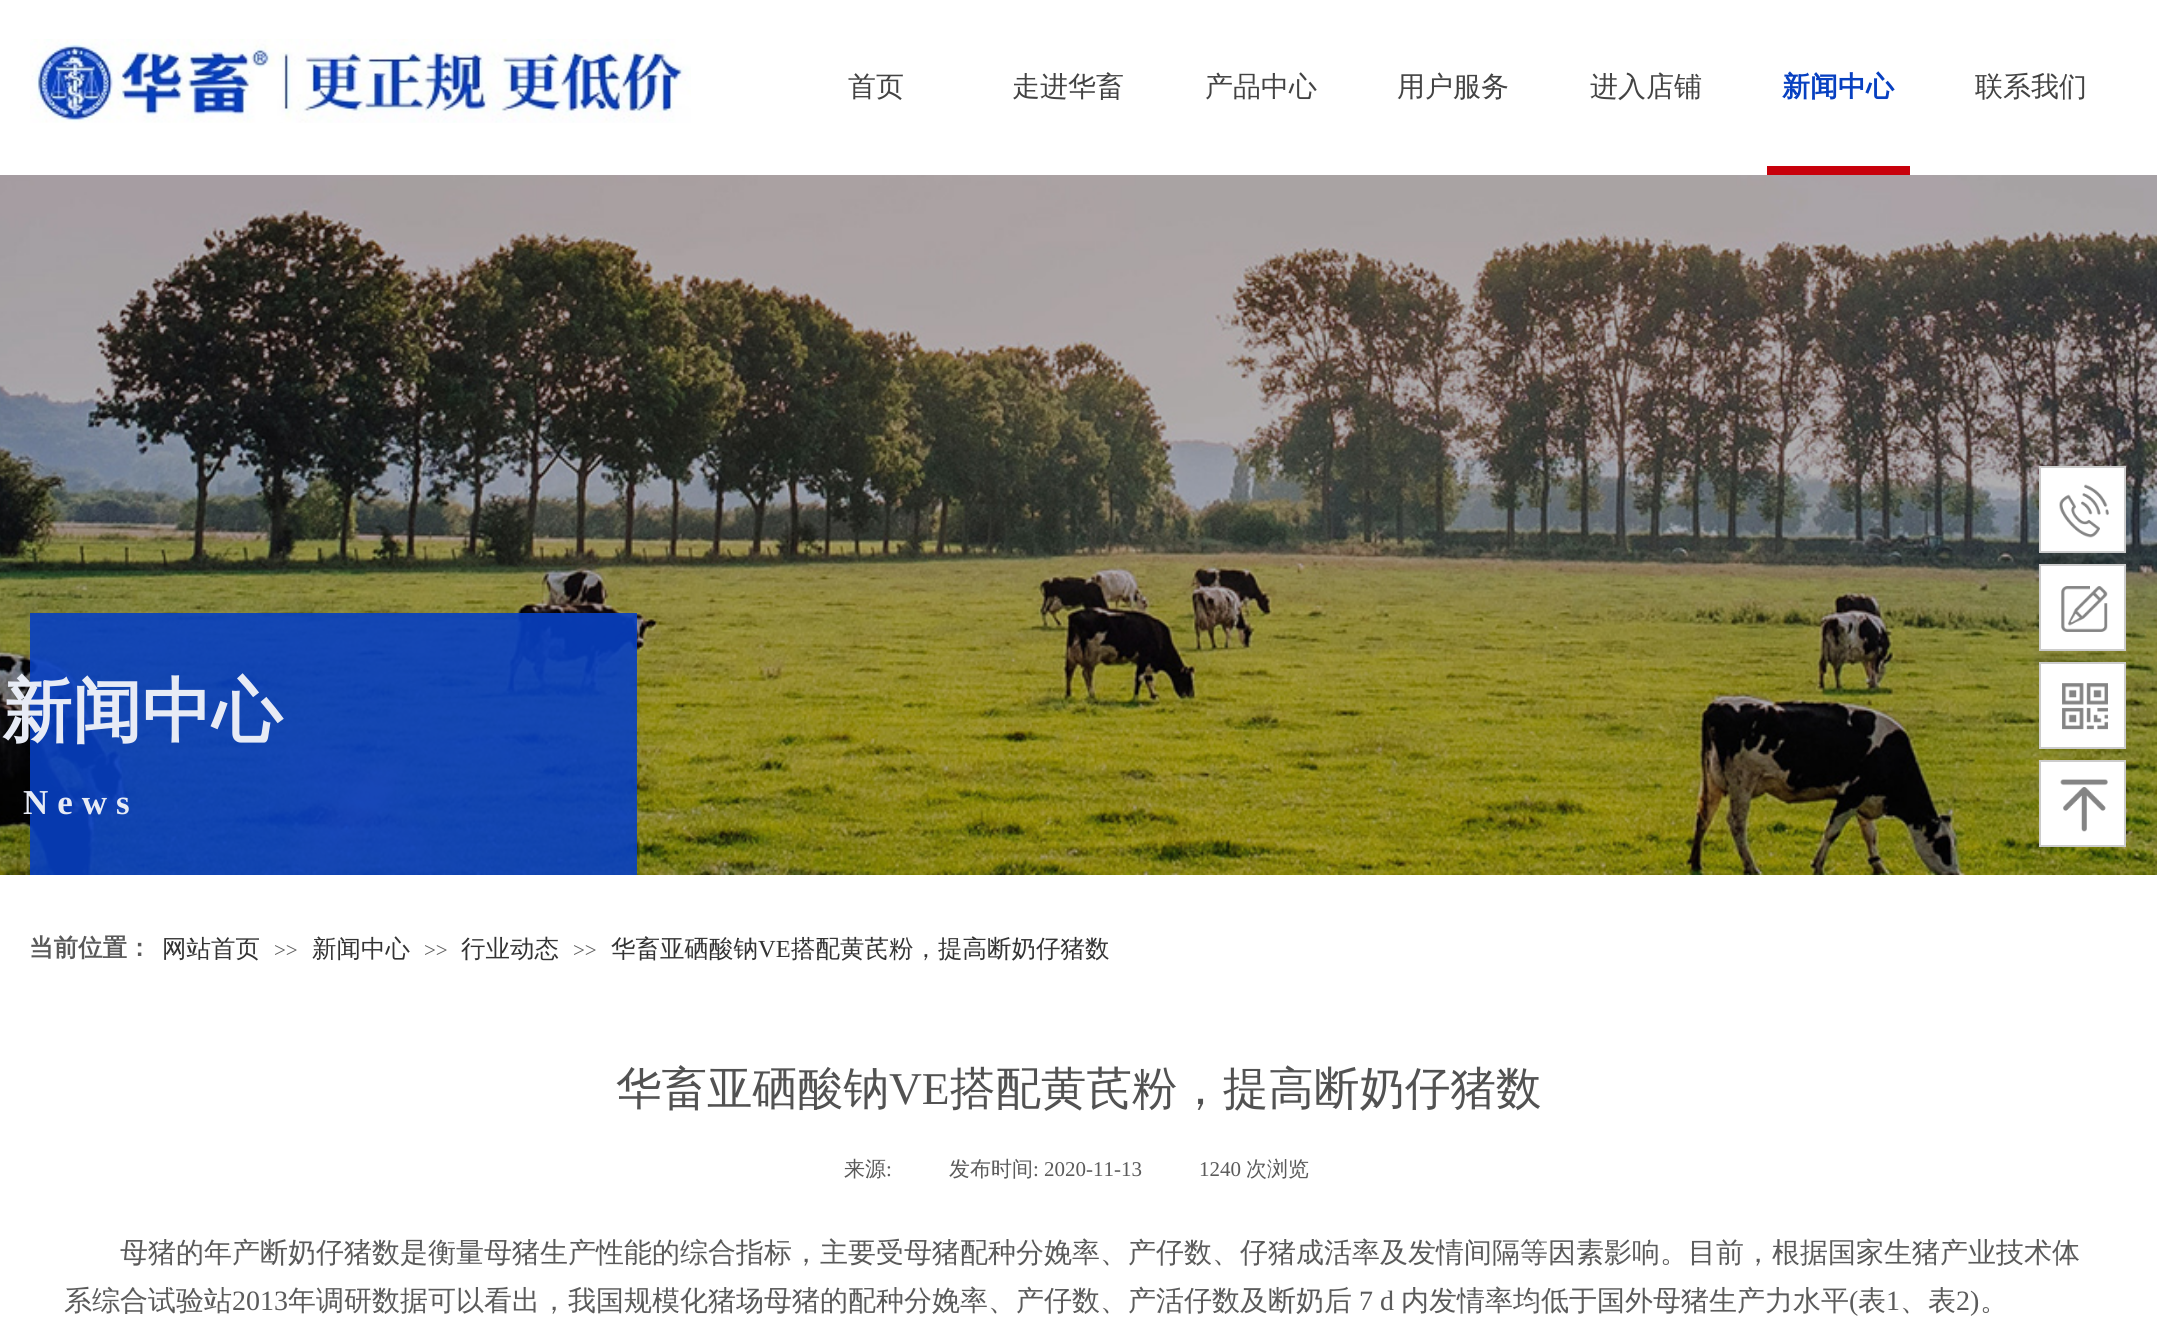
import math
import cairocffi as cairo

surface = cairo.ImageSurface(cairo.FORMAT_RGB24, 2157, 1320)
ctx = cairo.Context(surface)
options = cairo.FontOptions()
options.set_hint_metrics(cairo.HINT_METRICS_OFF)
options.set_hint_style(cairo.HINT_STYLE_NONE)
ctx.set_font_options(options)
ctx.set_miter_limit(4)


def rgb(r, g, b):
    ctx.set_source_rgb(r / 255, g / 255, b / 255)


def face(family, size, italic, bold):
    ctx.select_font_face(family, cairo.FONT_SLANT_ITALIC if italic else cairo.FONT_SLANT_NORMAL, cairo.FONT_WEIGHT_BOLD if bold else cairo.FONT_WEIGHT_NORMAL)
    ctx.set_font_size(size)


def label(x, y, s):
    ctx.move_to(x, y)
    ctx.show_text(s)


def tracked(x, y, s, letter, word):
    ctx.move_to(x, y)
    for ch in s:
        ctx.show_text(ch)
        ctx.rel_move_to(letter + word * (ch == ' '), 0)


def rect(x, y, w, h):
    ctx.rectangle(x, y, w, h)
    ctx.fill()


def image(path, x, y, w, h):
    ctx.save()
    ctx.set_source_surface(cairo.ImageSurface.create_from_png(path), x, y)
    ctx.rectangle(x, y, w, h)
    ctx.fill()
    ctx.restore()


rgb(255, 255, 255)
ctx.paint()
image('image0.png', 30, 39, 661, 84)
face('WenQuanYi Zen Hei Medium', 28, 0, 0)
rgb(67, 67, 67)
label(848, 96, '首页')
label(1012, 96, '走进华畜')
label(1205, 96, '产品中心')
label(1397, 96, '用户服务')
label(1590, 96, '进入店铺')
rgb(200, 0, 11)
rect(1767, 166, 143, 9)
face('WenQuanYi Zen Hei', 28, 0, 1)
rgb(7, 64, 193)
label(1782, 96, '新闻中心')
face('WenQuanYi Zen Hei Medium', 28, 0, 0)
rgb(67, 67, 67)
label(1975, 96, '联系我们')
image('image1.png', 0, 175, 2157, 700)
ctx.set_source_rgba(0.027, 0.251, 0.757, 0.9)
rect(30, 613, 607, 262)
face('WenQuanYi Zen Hei', 70, 0, 1)
rgb(231, 235, 245)
label(2, 735, '新闻中心')
face('Liberation Serif', 35, 0, 1)
tracked(23, 814, 'News', 9, 0)
face('WenQuanYi Zen Hei', 24.5, 0, 1)
rgb(90, 90, 90)
label(29, 956, '当前位置：')
face('WenQuanYi Zen Hei Medium', 24.5, 0, 0)
rgb(51, 51, 51)
label(162, 957, '网站首页')
face('Liberation Serif', 21, 0, 0)
rgb(90, 90, 90)
label(274, 957, '>>')
face('WenQuanYi Zen Hei Medium', 24.5, 0, 0)
rgb(51, 51, 51)
label(312, 957, '新闻中心')
face('Liberation Serif', 21, 0, 0)
rgb(90, 90, 90)
label(424, 957, '>>')
face('WenQuanYi Zen Hei Medium', 24.5, 0, 0)
rgb(51, 51, 51)
label(461, 957, '行业动态')
face('Liberation Serif', 21, 0, 0)
rgb(90, 90, 90)
label(573, 957, '>>')
face('WenQuanYi Zen Hei Medium', 24.5, 0, 0)
rgb(51, 51, 51)
label(611, 957, '华畜亚硒酸钠')
face('Liberation Serif', 24.5, 0, 0)
label(758, 957, 'VE')
face('WenQuanYi Zen Hei Medium', 24.5, 0, 0)
label(791, 957, '搭配黄芪粉，提高断奶仔猪数')
face('WenQuanYi Zen Hei Medium', 45.5, 0, 0)
rgb(82, 82, 82)
label(616, 1104, '华畜亚硒酸钠')
face('Liberation Serif', 45.5, 0, 0)
label(889, 1104, 'VE')
face('WenQuanYi Zen Hei Medium', 45.5, 0, 0)
label(950, 1104, '搭配黄芪粉，提高断奶仔猪数')
face('WenQuanYi Zen Hei Medium', 21, 0, 0)
rgb(90, 90, 90)
label(844, 1176, '来源')
face('Liberation Serif', 21, 0, 0)
label(886, 1176, ':')
face('WenQuanYi Zen Hei Medium', 21, 0, 0)
label(949, 1176, '发布时间')
face('Liberation Serif', 21, 0, 0)
label(1033, 1176, ': 2020-11-13')
label(1199, 1176, '1240')
face('WenQuanYi Zen Hei Medium', 21, 0, 0)
label(1246, 1176, '次浏览')
face('WenQuanYi Zen Hei Medium', 28, 0, 0)
label(120, 1262, '母猪的年产断奶仔猪数是衡量母猪生产性能的综合指标，主要受母猪配种分娩率、产仔数、仔猪成活率及发情间隔等因素影响。目前，根据国家生猪产业技术体')
label(64, 1310, '系综合试验站')
face('Liberation Serif', 28, 0, 0)
label(232, 1310, '2013')
face('WenQuanYi Zen Hei Medium', 28, 0, 0)
label(288, 1310, '年调研数据可以看出，我国规模化猪场母猪的配种分娩率、产仔数、产活仔数及断奶后')
face('Liberation Serif', 28, 0, 0)
label(1359, 1310, '7 d')
face('WenQuanYi Zen Hei Medium', 28, 0, 0)
label(1401, 1310, '内发情率均低于国外母猪生产力水平')
face('Liberation Serif', 28, 0, 0)
label(1849, 1310, '(')
face('WenQuanYi Zen Hei Medium', 28, 0, 0)
label(1858, 1310, '表')
face('Liberation Serif', 28, 0, 0)
label(1886, 1310, '1')
face('WenQuanYi Zen Hei Medium', 28, 0, 0)
label(1900, 1310, '、表')
face('Liberation Serif', 28, 0, 0)
label(1956, 1310, '2)')
face('WenQuanYi Zen Hei Medium', 28, 0, 0)
label(1980, 1310, '。')
rgb(255, 255, 255)
ctx.rectangle(2040, 467, 85, 85)
ctx.fill_preserve()
rgb(204, 204, 204)
ctx.stroke()
image('image2.png', 2059, 484, 50, 54)
rgb(255, 255, 255)
ctx.rectangle(2040, 565, 85, 85)
ctx.fill_preserve()
rgb(204, 204, 204)
ctx.stroke()
image('image3.png', 2061, 586, 47, 46)
rgb(255, 255, 255)
ctx.rectangle(2040, 663, 85, 85)
ctx.fill_preserve()
rgb(204, 204, 204)
ctx.stroke()
image('image4.png', 2062, 683, 46, 47)
rgb(255, 255, 255)
ctx.rectangle(2040, 761, 85, 85)
ctx.fill_preserve()
rgb(204, 204, 204)
ctx.stroke()
image('image5.png', 2060, 779, 48, 53)
surface.write_to_png('render.png')
